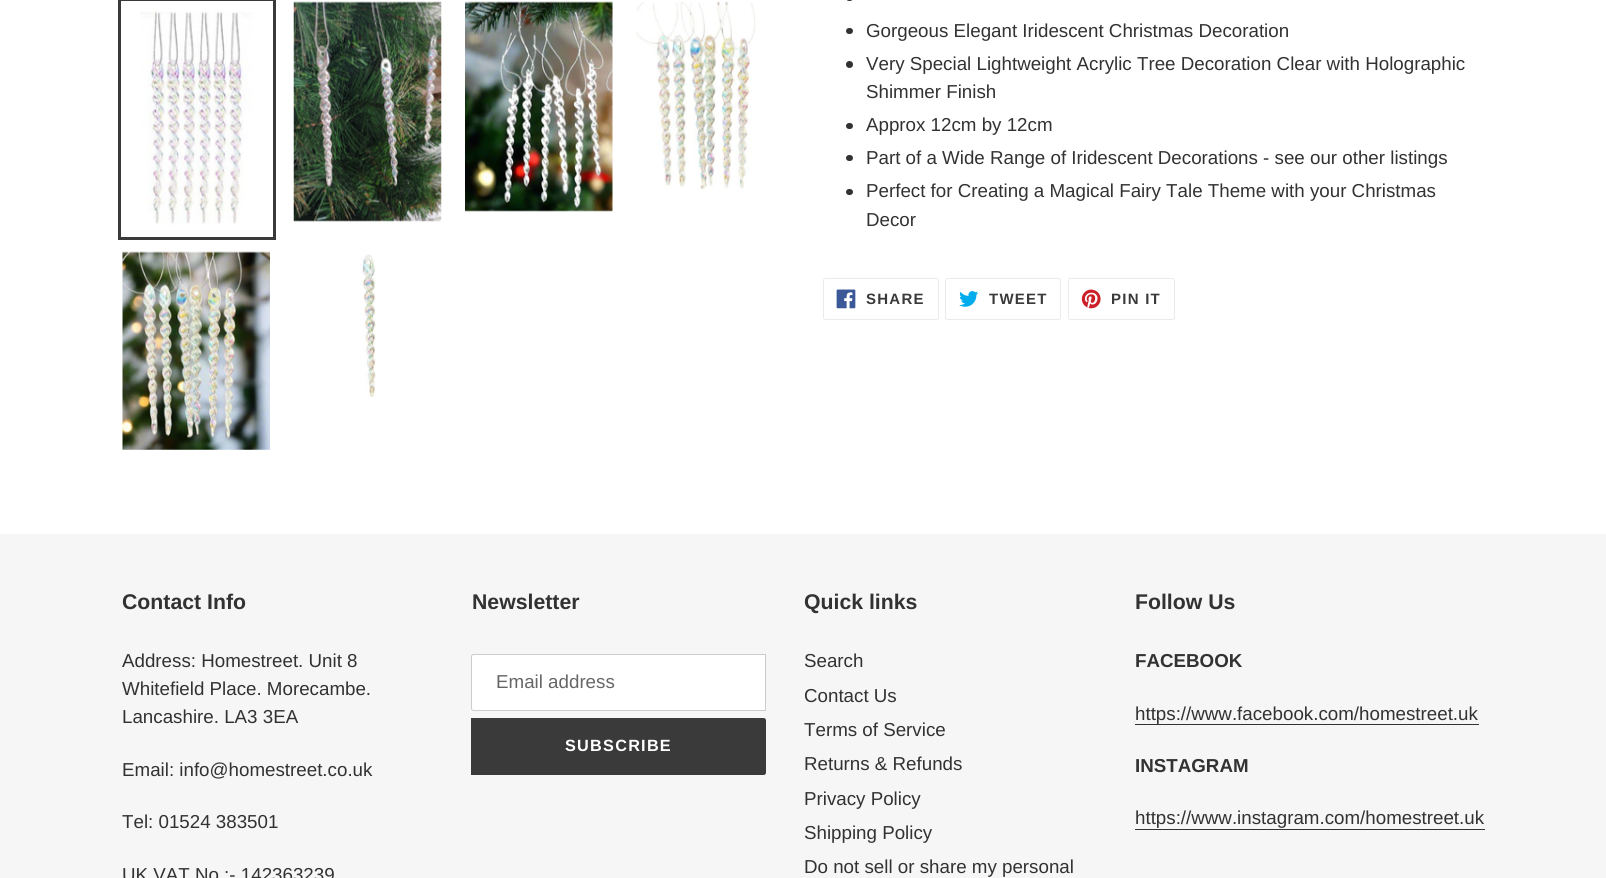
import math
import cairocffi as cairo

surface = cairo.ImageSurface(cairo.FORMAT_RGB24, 1606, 878)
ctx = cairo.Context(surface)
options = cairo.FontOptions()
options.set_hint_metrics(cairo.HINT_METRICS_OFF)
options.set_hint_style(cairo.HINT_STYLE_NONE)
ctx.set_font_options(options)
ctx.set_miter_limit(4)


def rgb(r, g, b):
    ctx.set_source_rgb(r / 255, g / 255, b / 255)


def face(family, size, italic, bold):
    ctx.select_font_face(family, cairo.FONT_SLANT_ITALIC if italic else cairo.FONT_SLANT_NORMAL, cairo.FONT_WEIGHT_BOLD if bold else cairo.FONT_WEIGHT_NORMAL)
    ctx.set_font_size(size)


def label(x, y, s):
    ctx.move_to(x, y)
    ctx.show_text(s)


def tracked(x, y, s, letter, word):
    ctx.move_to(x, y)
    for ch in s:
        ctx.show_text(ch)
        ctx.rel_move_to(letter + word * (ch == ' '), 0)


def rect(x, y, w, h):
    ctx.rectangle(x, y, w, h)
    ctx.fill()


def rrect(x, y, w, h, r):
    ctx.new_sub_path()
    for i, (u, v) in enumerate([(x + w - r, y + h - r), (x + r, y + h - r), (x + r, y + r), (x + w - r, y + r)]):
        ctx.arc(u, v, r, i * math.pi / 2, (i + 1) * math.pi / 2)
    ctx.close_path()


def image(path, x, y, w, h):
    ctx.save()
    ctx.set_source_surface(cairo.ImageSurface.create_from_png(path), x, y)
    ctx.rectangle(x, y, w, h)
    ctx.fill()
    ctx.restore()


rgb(255, 255, 255)
ctx.paint()
ctx.rectangle(119.5, -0.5, 155, 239)
rgb(58, 58, 58)
ctx.set_line_width(3)
ctx.stroke()
image('image0.png', 140, 11, 113, 214)
image('image1.png', 293, 1, 149, 221)
image('image2.png', 465, 1, 148, 211)
image('image3.png', 636, 1, 120, 189)
image('image4.png', 122, 251, 148, 199)
image('image5.png', 360, 254, 16, 144)
rgb(51, 50, 50)
rrect(846, -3, 7, 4, 3)
ctx.fill()
rrect(846, 28, 7, 6, 3)
ctx.fill()
face('Liberation Sans', 18.75, 0, 0)
label(866, 37, 'Gorgeous Elegant Iridescent Christmas Decoration')
ctx.new_path()
ctx.arc(849.5, 64.5, 3.5, 0, 2 * math.pi)
ctx.fill()
label(866, 70, 'Very Special Lightweight Acrylic Tree Decoration Clear with Holographic')
label(866, 98, 'Shimmer Finish')
rrect(846, 123, 7, 6, 3)
ctx.fill()
label(866, 131, 'Approx 12cm by 12cm')
rrect(846, 155, 7, 6, 3)
ctx.fill()
label(866, 164, 'Part of a Wide Range of Iridescent Decorations - see our other listings')
rrect(846, 189, 7, 6, 3)
ctx.fill()
label(866, 197, 'Perfect for Creating a Magical Fairy Tale Theme with your Christmas')
label(866, 226, 'Decor')
rrect(823.5, 278.5, 115, 41, 2)
rgb(235, 235, 235)
ctx.set_line_width(1)
ctx.stroke()
image('image6.png', 836, 289, 20, 20)
face('Liberation Sans', 15, 0, 1)
rgb(58, 58, 58)
tracked(866, 304, 'SHARE', 1.25, 0)
rrect(945.5, 278.5, 115, 41, 2)
rgb(235, 235, 235)
ctx.stroke()
image('image7.png', 959, 291, 20, 16)
rgb(58, 58, 58)
tracked(989, 304, 'TWEET', 1.25, 0)
rrect(1068.5, 278.5, 106, 41, 2)
rgb(235, 235, 235)
ctx.stroke()
image('image8.png', 1081, 289, 20, 20)
rgb(58, 58, 58)
tracked(1111, 304, 'PIN IT', 1.25, 0)
rgb(246, 246, 246)
rect(0, 534, 1606, 344)
face('Liberation Sans', 21.25, 0, 1)
rgb(51, 50, 50)
label(122, 609, 'Contact Info')
face('Liberation Sans', 18.75, 0, 0)
label(122, 667, 'Address: Homestreet. Unit 8')
label(122, 695, 'Whitefield Place. Morecambe.')
label(122, 723, 'Lancashire. LA3 3EA')
label(122, 776, 'Email: info@homestreet.co.uk')
label(122, 828, 'Tel: 01524 383501')
label(122, 881, 'UK VAT No :- 142363239')
face('Liberation Sans', 21.25, 0, 1)
label(472, 609, 'Newsletter')
rgb(255, 255, 255)
ctx.new_path()
ctx.move_to(473.5, 654.5)
ctx.line_to(765.5, 654.5)
ctx.line_to(765.5, 710.5)
ctx.line_to(473.5, 710.5)
ctx.curve_to(472.5, 710.5, 471.5, 709.5, 471.5, 708.5)
ctx.line_to(471.5, 656.5)
ctx.curve_to(471.5, 655.5, 472.5, 654.5, 473.5, 654.5)
ctx.close_path()
ctx.fill_preserve()
rgb(204, 204, 204)
ctx.stroke()
face('Liberation Sans', 18.75, 0, 0)
rgb(102, 102, 102)
label(496, 688, 'Email address')
rgb(58, 58, 58)
ctx.new_path()
ctx.move_to(471, 718)
ctx.line_to(763.5, 718)
ctx.curve_to(765, 718, 766, 719, 766, 720.5)
ctx.line_to(766, 772.5)
ctx.curve_to(766, 774, 765, 775, 763.5, 775)
ctx.line_to(471, 775)
ctx.close_path()
ctx.fill()
face('Liberation Sans', 16.25, 0, 1)
rgb(255, 255, 255)
tracked(565, 751, 'SUBSCRIBE', 1.25, 0)
face('Liberation Sans', 21.25, 0, 1)
rgb(51, 50, 50)
label(804, 609, 'Quick links')
face('Liberation Sans', 18.75, 0, 0)
label(804, 667, 'Search')
label(804, 702, 'Contact Us')
label(804, 736, 'Terms of Service')
label(804, 770, 'Returns & Refunds')
label(804, 805, 'Privacy Policy')
label(804, 839, 'Shipping Policy')
label(804, 873, 'Do not sell or share my personal')
face('Liberation Sans', 21.25, 0, 1)
label(1135, 609, 'Follow Us')
face('Liberation Sans', 18.75, 0, 1)
label(1135, 667, 'FACEBOOK')
face('Liberation Sans', 18.75, 0, 0)
label(1135, 720, 'https://www.facebook.com/homestreet.uk')
rect(1135, 724, 344, 1)
face('Liberation Sans', 18.75, 0, 1)
label(1135, 772, 'INSTAGRAM')
face('Liberation Sans', 18.75, 0, 0)
label(1135, 824, 'https://www.instagram.com/homestreet.uk')
rect(1135, 829, 350, 1)
surface.write_to_png('render.png')
